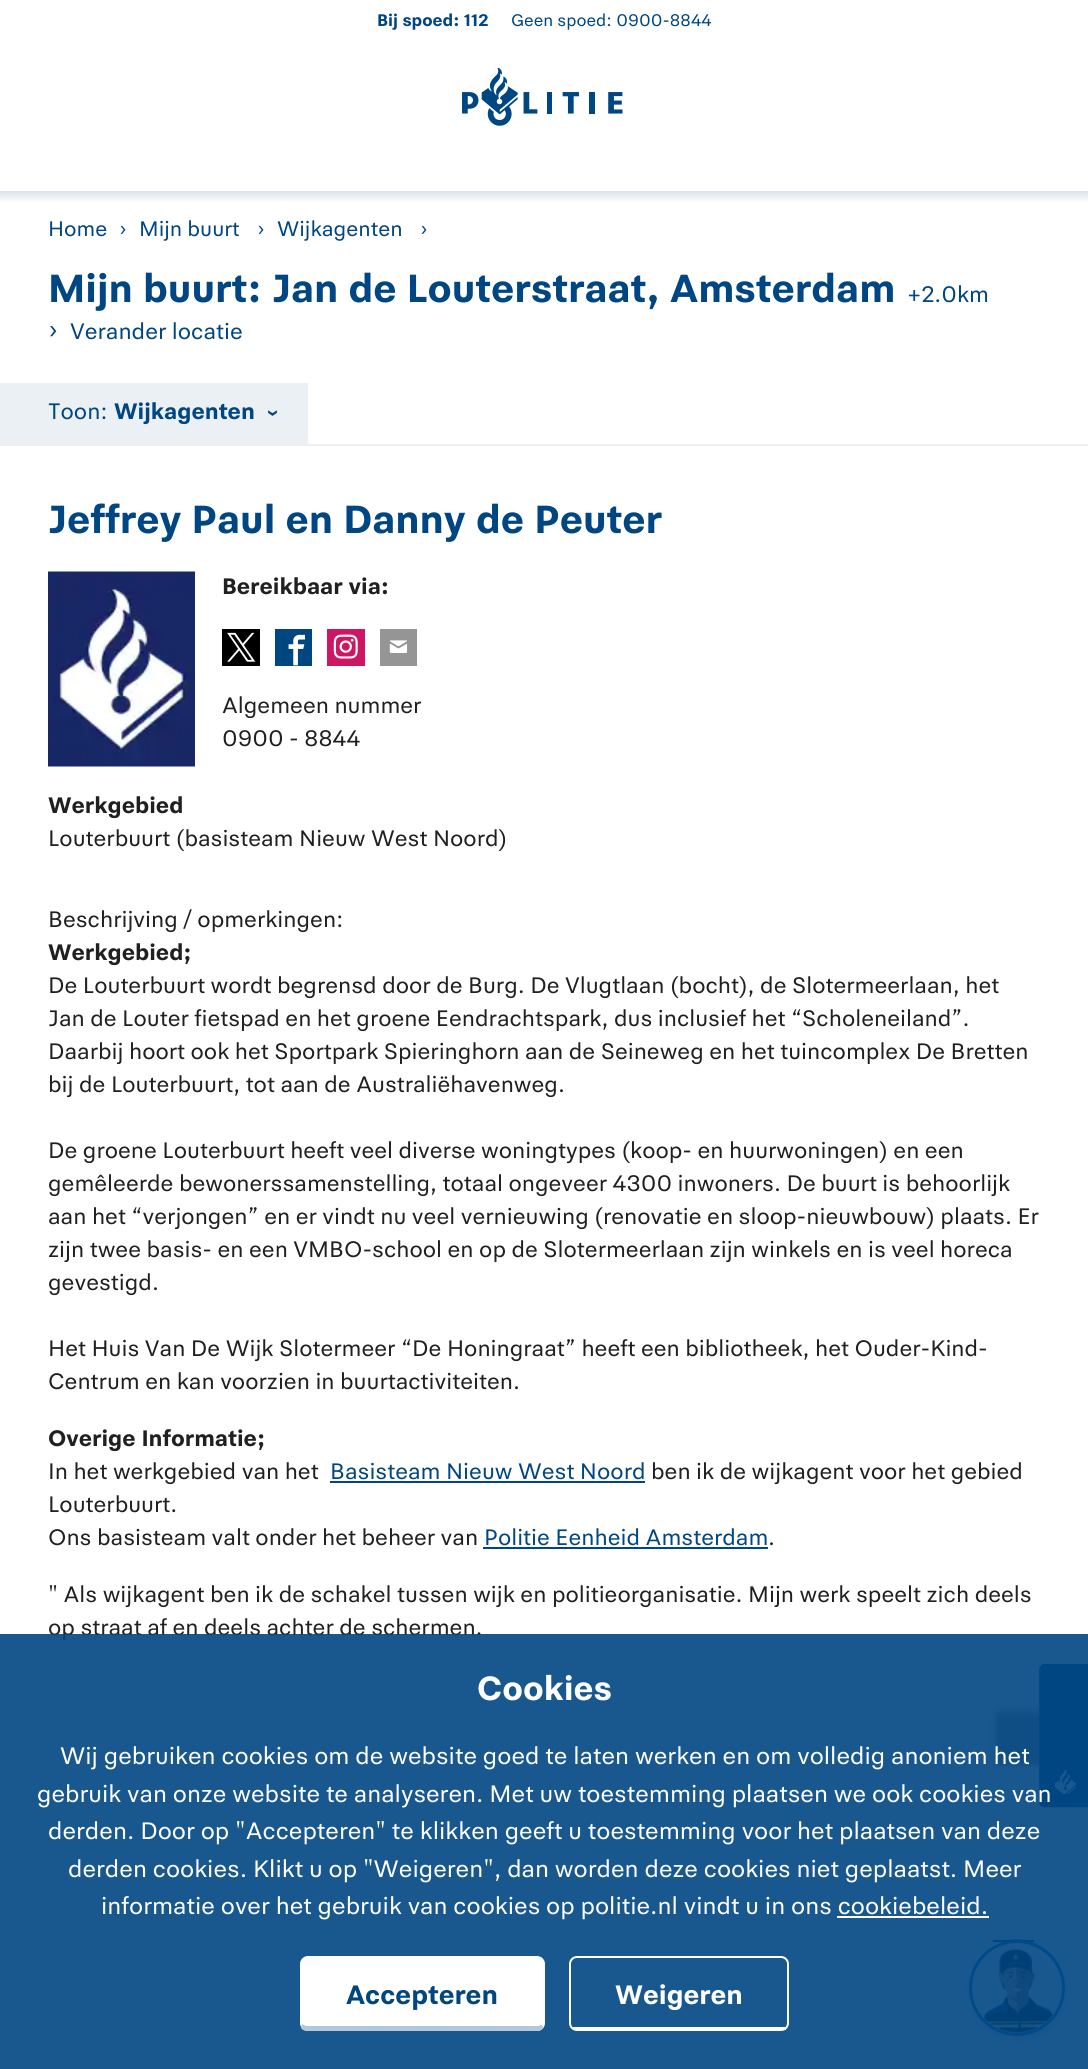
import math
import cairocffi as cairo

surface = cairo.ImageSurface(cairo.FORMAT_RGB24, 1088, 2069)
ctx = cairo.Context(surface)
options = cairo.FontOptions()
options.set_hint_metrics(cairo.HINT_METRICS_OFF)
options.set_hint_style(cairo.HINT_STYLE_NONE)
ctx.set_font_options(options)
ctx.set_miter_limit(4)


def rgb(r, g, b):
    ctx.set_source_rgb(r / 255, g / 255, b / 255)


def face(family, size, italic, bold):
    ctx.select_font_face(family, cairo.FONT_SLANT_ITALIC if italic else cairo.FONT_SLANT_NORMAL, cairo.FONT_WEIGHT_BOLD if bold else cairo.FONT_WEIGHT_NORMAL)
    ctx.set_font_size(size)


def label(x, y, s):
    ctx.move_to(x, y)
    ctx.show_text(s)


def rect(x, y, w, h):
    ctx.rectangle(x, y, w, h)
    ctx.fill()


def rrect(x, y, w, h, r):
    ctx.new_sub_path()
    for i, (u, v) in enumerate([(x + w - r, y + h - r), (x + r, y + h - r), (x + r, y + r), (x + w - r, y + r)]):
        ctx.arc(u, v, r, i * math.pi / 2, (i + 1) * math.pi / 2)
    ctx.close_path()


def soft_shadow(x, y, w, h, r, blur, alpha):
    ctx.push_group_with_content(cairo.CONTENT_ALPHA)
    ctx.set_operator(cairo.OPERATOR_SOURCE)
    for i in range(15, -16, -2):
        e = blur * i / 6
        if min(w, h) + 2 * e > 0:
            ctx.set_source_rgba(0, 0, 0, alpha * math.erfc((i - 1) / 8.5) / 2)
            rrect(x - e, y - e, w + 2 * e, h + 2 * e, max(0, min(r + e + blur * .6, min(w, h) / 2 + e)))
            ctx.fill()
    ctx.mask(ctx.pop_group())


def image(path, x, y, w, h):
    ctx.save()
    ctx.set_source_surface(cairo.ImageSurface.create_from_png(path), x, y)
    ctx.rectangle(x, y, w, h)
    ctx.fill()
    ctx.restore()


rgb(255, 255, 255)
ctx.paint()
face('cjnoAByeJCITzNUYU', 18, 0, 1)
rgb(0, 70, 130)
label(377, 26, 'Bij spoed: 112')
face('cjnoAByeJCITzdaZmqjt', 18, 0, 0)
label(511, 26, 'Geen spoed: 0900-8844')
image('image0.png', 462, 68, 161, 58)
gradient = cairo.LinearGradient(545, 190, 545, 203)
gradient.add_color_stop_rgba(0, 0.839, 0.882, 0.922, 1)
gradient.add_color_stop_rgba(1, 1, 1, 1, 1)
ctx.set_source(gradient)
rect(0, 191, 1088, 11)
face('cjnoAByeJCITzdaZmqjt', 22.5, 0, 0)
rgb(0, 70, 130)
label(48, 236, 'Home')
label(119, 236, '›')
label(139, 236, 'Mijn buurt')
label(257, 236, '›')
label(277, 236, 'Wijkagenten')
label(420, 236, '›')
face('cjnoAByeJCITzNUYU', 42, 0, 1)
label(48, 302, 'Mijn buurt: Jan de Louterstraat, Amsterdam')
face('cjnoAByeJCITzdaZmqjt', 24, 0, 0)
label(907, 302, '+2.0km')
face('cjnoAByeJCITzdaZmqjt', 29, 0, 0)
label(48, 339, '›')
face('cjnoAByeJCITzdaZmqjt', 24, 0, 0)
label(70, 339, 'Verander locatie')
rgb(235, 240, 245)
rect(0, 444, 1088, 2)
rect(0, 383, 308, 61)
rgb(0, 70, 130)
label(48, 419, 'Toon:')
face('cjnoAByeJCITzNUYU', 24, 0, 1)
label(114, 419, 'Wijkagenten')
ctx.save()
ctx.translate(266, 409)
ctx.rotate(90 * math.pi / 180)
label(0, 0, '›')
ctx.restore()
face('cjnoAByeJCITzNUYU', 42, 0, 1)
label(48, 533, 'Jeffrey Paul en Danny de Peuter')
image('image1.png', 48, 571, 147, 196)
face('cjnoAByeJCITzNUYU', 24, 0, 1)
rgb(32, 32, 32)
label(222, 594, 'Bereikbaar via:')
image('image2.png', 222, 629, 38, 37)
rgb(0, 70, 129)
rect(275, 629, 37, 37)
image('image3.png', 288, 634, 17, 32)
rgb(205, 23, 98)
rect(327, 629, 38, 37)
image('image4.png', 333, 634, 25, 25)
rgb(149, 149, 149)
rect(380, 629, 37, 37)
image('image5.png', 389, 640, 19, 13)
face('cjnoAByeJCITzdaZmqjt', 24, 0, 0)
rgb(32, 32, 32)
label(222, 713, 'Algemeen nummer')
label(222, 746, '0900 - 8844')
face('cjnoAByeJCITzNUYU', 24, 0, 1)
label(48, 813, 'Werkgebied')
face('cjnoAByeJCITzdaZmqjt', 24, 0, 0)
label(48, 846, 'Louterbuurt (basisteam Nieuw West Noord)')
label(48, 927, 'Beschrijving / opmerkingen:')
face('cjnoAByeJCITzNUYU', 24, 0, 1)
label(48, 960, 'Werkgebied;')
face('cjnoAByeJCITzdaZmqjt', 24, 0, 0)
label(48, 993, 'De Louterbuurt wordt begrensd door de Burg. De Vlugtlaan (bocht), de Slotermeerlaan, het')
label(48, 1026, 'Jan de Louter fietspad en het groene Eendrachtspark, dus inclusief het “Scholeneiland”.')
label(48, 1059, 'Daarbij hoort ook het Sportpark Spieringhorn aan de Seineweg en het tuincomplex De Bretten')
label(48, 1092, 'bij de Louterbuurt, tot aan de Australiëhavenweg.')
label(48, 1158, 'De groene Louterbuurt heeft veel diverse woningtypes (koop- en huurwoningen) en een')
label(48, 1191, 'gemêleerde bewonerssamenstelling, totaal ongeveer 4300 inwoners. De buurt is behoorlijk')
label(48, 1224, 'aan het “verjongen” en er vindt nu veel vernieuwing (renovatie en sloop-nieuwbouw) plaats. Er')
label(48, 1257, 'zijn twee basis- en een VMBO-school en op de Slotermeerlaan zijn winkels en is veel horeca')
label(48, 1290, 'gevestigd.')
label(48, 1356, 'Het Huis Van De Wijk Slotermeer “De Honingraat” heeft een bibliotheek, het Ouder-Kind-')
label(48, 1389, 'Centrum en kan voorzien in buurtactiviteiten.')
face('cjnoAByeJCITzNUYU', 24, 0, 1)
label(48, 1446, 'Overige Informatie;')
face('cjnoAByeJCITzdaZmqjt', 24, 0, 0)
label(48, 1479, 'In het werkgebied van het')
rgb(0, 70, 130)
label(330, 1479, 'Basisteam Nieuw West Noord')
rect(330, 1481, 315, 2)
rgb(32, 32, 32)
label(651, 1479, 'ben ik de wijkagent voor het gebied')
label(48, 1512, 'Louterbuurt.')
label(48, 1545, 'Ons basisteam valt onder het beheer van')
rgb(0, 70, 130)
label(484, 1545, 'Politie Eenheid Amsterdam')
rect(483, 1547, 285, 2)
rgb(32, 32, 32)
label(768, 1545, '.')
label(48, 1602, '" Als wijkagent ben ik de schakel tussen wijk en politieorganisatie. Mijn werk speelt zich deels')
label(48, 1635, 'op straat af en deels achter de schermen.')
rgb(0, 70, 130)
rect(993, 1940, 41, 2)
rgb(0, 70, 130)
soft_shadow(969, 1943, 96, 96, 48, 3, 0.2)
rgb(255, 255, 255)
ctx.arc(1017, 1988, 48, 0, 2 * math.pi)
ctx.fill()
image('image6.png', 983, 1939, 70, 94)
ctx.arc(1017, 1988, 46.5, 0, 2 * math.pi)
rgb(0, 115, 214)
ctx.set_line_width(3)
ctx.stroke()
rgb(0, 0, 0)
soft_shadow(995, 1710, 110, 54, 5, 4, 0.2)
soft_shadow(998, 1716, 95, 48, 1.5, 1, 0.12)
soft_shadow(995, 1712, 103, 54, 5, 1.5, 0.14)
rgb(0, 70, 130)
ctx.new_path()
ctx.move_to(1040, 1803)
ctx.line_to(1040, 1669)
ctx.curve_to(1040, 1666, 1042, 1664, 1044, 1664)
ctx.line_to(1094, 1664)
ctx.line_to(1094, 1807)
ctx.line_to(1044, 1807)
ctx.curve_to(1042, 1807, 1040, 1805, 1040, 1803)
ctx.close_path()
ctx.fill()
ctx.new_path()
ctx.move_to(1040, 1802.5)
ctx.line_to(1040, 1668.5)
ctx.curve_to(1040, 1666.5, 1042, 1665, 1044, 1665)
ctx.line_to(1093, 1665)
ctx.line_to(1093, 1806.5)
ctx.line_to(1044, 1806.5)
ctx.curve_to(1042, 1806.5, 1040, 1805, 1040, 1802.5)
ctx.close_path()
ctx.set_line_width(1.5)
ctx.stroke()
image('image7.png', 1055, 1770, 21, 24)
ctx.set_source_rgba(0, 0.275, 0.51, 0.9)
rect(0, 1634, 1088, 435)
face('cjnoAByeJCITzNUYU', 36, 0, 1)
rgb(255, 255, 255)
label(477, 1700, 'Cookies')
face('cjnoAByeJCITzdaZmqjt', 25.5, 0, 0)
label(60, 1764, 'Wij gebruiken cookies om de website goed te laten werken en om volledig anoniem het')
label(37, 1802, 'gebruik van onze website te analyseren. Met uw toestemming plaatsen we ook cookies van')
label(48, 1839, 'derden. Door op "Accepteren" te klikken geeft u toestemming voor het plaatsen van deze')
label(68, 1877, 'derden cookies. Klikt u op "Weigeren", dan worden deze cookies niet geplaatst. Meer')
label(101, 1914, 'informatie over het gebruik van cookies op politie.nl vindt u in ons cookiebeleid.')
rect(837, 1916, 152, 2)
rrect(300, 1956, 245, 75, 8)
ctx.fill()
rgb(179, 200, 218)
ctx.new_path()
ctx.move_to(308, 2031)
ctx.line_to(537, 2031)
ctx.curve_to(540, 2031, 542, 2030, 543, 2027)
ctx.line_to(542, 2025)
ctx.curve_to(541, 2025, 539, 2026, 537, 2026)
ctx.line_to(308, 2026)
ctx.curve_to(305, 2026, 303, 2025, 302, 2024)
ctx.line_to(301, 2028)
ctx.curve_to(302, 2030, 305, 2031, 308, 2031)
ctx.close_path()
ctx.fill()
face('cjnoAByeJCITzNUYU', 28.5, 0, 1)
rgb(0, 70, 130)
label(346, 2004, 'Accepteren')
rrect(570, 1957, 218, 73, 7)
rgb(255, 255, 255)
ctx.set_line_width(2)
ctx.stroke()
rect(573, 2027, 213, 3)
label(615, 2004, 'Weigeren')
surface.write_to_png('render.png')
